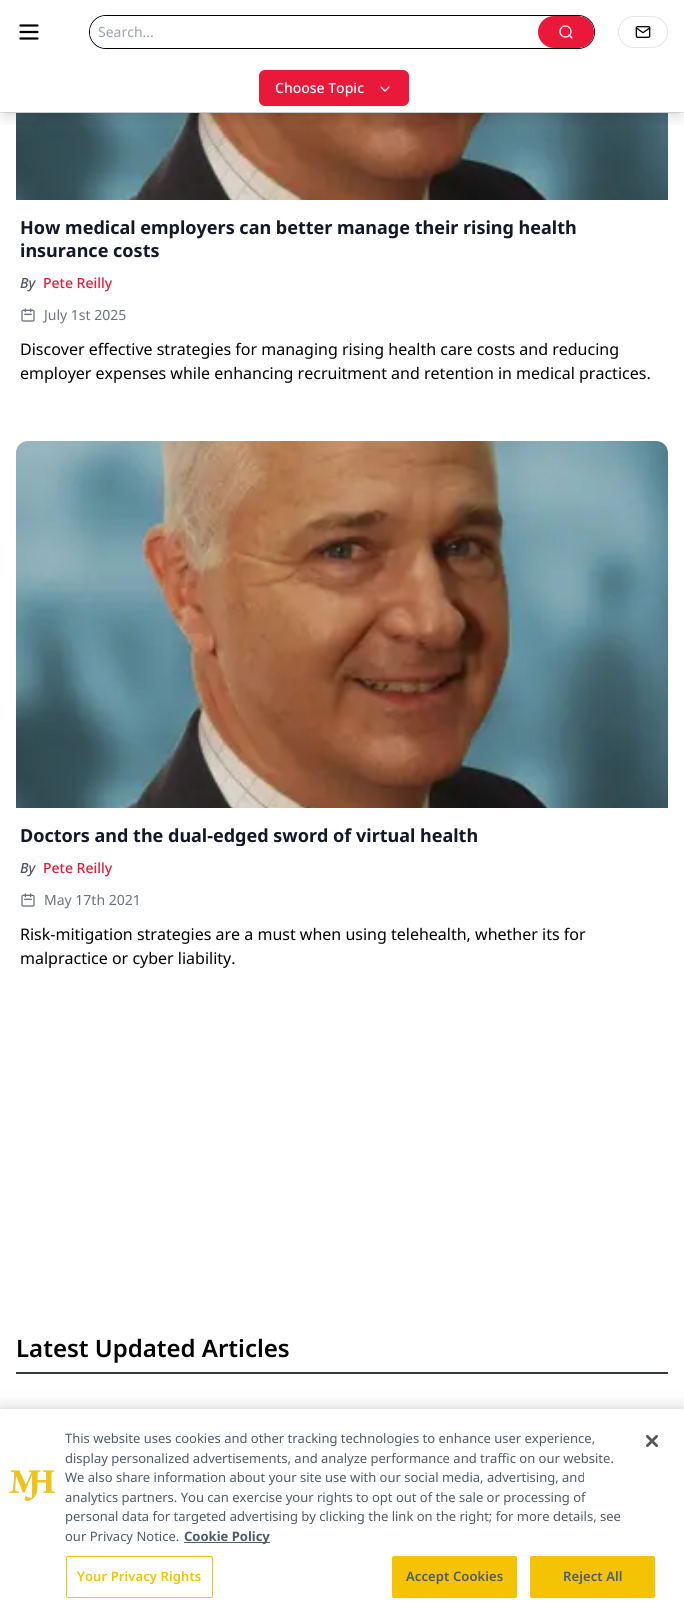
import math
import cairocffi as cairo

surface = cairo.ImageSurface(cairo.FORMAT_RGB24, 684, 1619)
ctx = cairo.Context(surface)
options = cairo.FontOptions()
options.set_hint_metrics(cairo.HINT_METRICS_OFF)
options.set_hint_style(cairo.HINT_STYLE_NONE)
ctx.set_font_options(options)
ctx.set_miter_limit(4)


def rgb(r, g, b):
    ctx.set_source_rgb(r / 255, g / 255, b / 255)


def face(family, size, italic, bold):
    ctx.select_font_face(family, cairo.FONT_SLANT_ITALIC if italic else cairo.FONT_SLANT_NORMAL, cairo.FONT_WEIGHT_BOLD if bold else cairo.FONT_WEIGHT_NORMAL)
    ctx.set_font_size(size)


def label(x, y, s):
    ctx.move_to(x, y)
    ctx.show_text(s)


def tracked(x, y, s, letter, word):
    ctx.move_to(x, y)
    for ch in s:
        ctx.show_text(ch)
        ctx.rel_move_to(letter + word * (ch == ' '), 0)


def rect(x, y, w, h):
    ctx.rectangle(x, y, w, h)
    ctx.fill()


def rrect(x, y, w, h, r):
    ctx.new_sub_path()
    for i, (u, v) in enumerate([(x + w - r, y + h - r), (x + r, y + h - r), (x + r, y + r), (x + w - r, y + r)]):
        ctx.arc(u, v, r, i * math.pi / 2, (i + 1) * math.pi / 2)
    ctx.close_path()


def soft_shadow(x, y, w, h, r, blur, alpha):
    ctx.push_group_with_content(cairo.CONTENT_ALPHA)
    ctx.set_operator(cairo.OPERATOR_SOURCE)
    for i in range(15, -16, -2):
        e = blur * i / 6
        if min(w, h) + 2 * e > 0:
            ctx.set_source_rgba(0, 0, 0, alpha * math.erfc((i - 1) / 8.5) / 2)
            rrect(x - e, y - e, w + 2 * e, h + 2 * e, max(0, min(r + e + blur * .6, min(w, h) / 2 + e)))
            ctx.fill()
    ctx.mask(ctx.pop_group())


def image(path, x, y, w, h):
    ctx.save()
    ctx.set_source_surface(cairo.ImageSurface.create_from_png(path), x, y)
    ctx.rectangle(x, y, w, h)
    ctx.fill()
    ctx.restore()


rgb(255, 255, 255)
ctx.paint()
rgb(229, 231, 235)
rect(0, 112, 684, 1)
ctx.new_path()
ctx.move_to(20.5, 25.5)
ctx.line_to(37.5, 25.5)
ctx.move_to(20.5, 32)
ctx.line_to(37.5, 32)
ctx.move_to(20.5, 38.5)
ctx.line_to(37.5, 38.5)
rgb(0, 0, 0)
ctx.set_line_width(2.2)
ctx.set_line_cap(cairo.LINE_CAP_ROUND)
ctx.set_line_join(cairo.LINE_JOIN_ROUND)
ctx.stroke()
rrect(89.5, 15.5, 505, 33, 16.5)
ctx.set_line_width(1)
ctx.set_line_cap(cairo.LINE_CAP_BUTT)
ctx.set_line_join(cairo.LINE_JOIN_MITER)
ctx.stroke()
rgb(255, 255, 255)
rrect(90, 16, 504, 32, 16)
ctx.fill()
face('Noto Sans', 14, 0, 0)
rgb(156, 163, 175)
label(98, 37, 'Search...')
rgb(235, 25, 57)
rrect(538, 16, 56, 32, 16)
ctx.fill()
ctx.arc(565.5, 31.5, 5.5, 0, 2 * math.pi)
rgb(255, 255, 255)
ctx.set_line_width(1.3)
ctx.stroke()
ctx.new_path()
ctx.move_to(572, 38)
ctx.line_to(569, 35)
ctx.set_line_cap(cairo.LINE_CAP_ROUND)
ctx.set_line_join(cairo.LINE_JOIN_ROUND)
ctx.stroke()
rrect(618.5, 16.5, 49, 31, 15.5)
rgb(229, 231, 235)
ctx.set_line_width(1)
ctx.set_line_cap(cairo.LINE_CAP_BUTT)
ctx.set_line_join(cairo.LINE_JOIN_MITER)
ctx.stroke()
image('image0.png', 635, 26, 16, 12)
image('image1.png', 16, 113, 652, 87)
ctx.save()
ctx.rectangle(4, 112, 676, 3)
ctx.clip()
rgb(0, 0, 0)
soft_shadow(4, 72, 676, 40, 0, 3, 0.1)
ctx.restore()
ctx.save()
ctx.rectangle(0, 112, 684, 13)
ctx.clip()
rgb(0, 0, 0)
soft_shadow(3, 77, 678, 42, 0, 7.5, 0.1)
ctx.restore()
rgb(235, 25, 57)
rrect(259, 70, 150, 36, 6)
ctx.fill()
face('Noto Sans Medium', 14, 0, 0)
rgb(255, 255, 255)
label(275, 93, 'Choose Topic')
ctx.new_path()
ctx.move_to(381, 87)
ctx.line_to(385, 91)
ctx.line_to(389, 87)
ctx.set_line_width(1.3)
ctx.set_line_cap(cairo.LINE_CAP_ROUND)
ctx.set_line_join(cairo.LINE_JOIN_ROUND)
ctx.stroke()
face('Noto Sans', 18, 0, 1)
rgb(17, 24, 39)
label(20, 234, 'How medical employers can better manage their rising health')
label(20, 257, 'insurance costs')
face('Noto Sans Medium', 14, 1, 0)
rgb(75, 85, 99)
label(20, 288, 'By')
face('Noto Sans Medium', 14, 0, 0)
rgb(235, 25, 57)
label(43, 288, 'Pete Reilly')
image('image2.png', 21, 308, 14, 14)
face('Noto Sans', 14, 0, 0)
rgb(107, 114, 128)
label(44, 320, 'July 1st 2025')
face('Noto Sans', 16, 0, 0)
rgb(0, 0, 0)
label(20, 355, 'Discover effective strategies for managing rising health care costs and reducing')
label(20, 379, 'employer expenses while enhancing recruitment and retention in medical practices.')
image('image3.png', 16, 441, 652, 367)
ctx.save()
ctx.rectangle(20, 824, 644, 22)
ctx.clip()
face('Noto Sans', 18, 0, 1)
rgb(17, 24, 39)
label(20, 842, 'Doctors and the dual-edged sword of virtual health')
ctx.restore()
face('Noto Sans Medium', 14, 1, 0)
rgb(75, 85, 99)
label(20, 873, 'By')
face('Noto Sans Medium', 14, 0, 0)
rgb(235, 25, 57)
label(43, 873, 'Pete Reilly')
image('image2.png', 21, 893, 14, 14)
face('Noto Sans', 14, 0, 0)
rgb(107, 114, 128)
label(44, 905, 'May 17th 2021')
face('Noto Sans', 16, 0, 0)
rgb(0, 0, 0)
label(20, 940, 'Risk-mitigation strategies are a must when using telehealth, whether its for')
label(20, 964, 'malpractice or cyber liability.')
rgb(54, 57, 58)
rect(16, 1372, 652, 2)
face('Noto Sans SemiBold', 24, 0, 0)
rgb(0, 0, 0)
label(16, 1357, 'Latest Updated Articles')
rgb(0, 0, 0)
soft_shadow(0, 1409, 684, 210, 0, 9, 0.2)
rgb(255, 255, 255)
rect(0, 1409, 684, 210)
image('image4.png', 9, 1470, 46, 31)
face('Noto Sans', 13, 0, 0)
rgb(76, 92, 107)
label(65, 1443, 'This website uses cookies and other tracking technologies to enhance user experience,')
label(65, 1463, 'display personalized advertisements, and analyze performance and traffic on our website.')
label(65, 1482, 'We also share information about your site use with our social media, advertising, and')
label(65, 1502, 'analytics partners. You can exercise your rights to opt out of the sale or processing of')
label(65, 1521, 'personal data for targeted advertising by clicking the link on the right; for more details, see')
label(65, 1541, 'our Privacy Notice.')
rect(184, 1542, 86, 1)
face('Noto Sans', 13, 0, 1)
label(184, 1541, 'Cookie Policy')
rrect(66.5, 1556.5, 146, 41, 1.5)
rgb(244, 196, 4)
ctx.set_line_width(1)
ctx.set_line_cap(cairo.LINE_CAP_BUTT)
ctx.set_line_join(cairo.LINE_JOIN_MITER)
ctx.stroke()
face('Noto Sans SemiBold', 13, 0, 0)
tracked(77, 1581, 'Your Privacy Rights', 0.1, 0)
rrect(392.5, 1556.5, 124, 41, 1.5)
ctx.fill_preserve()
ctx.stroke()
rgb(76, 92, 107)
tracked(406, 1581, 'Accept Cookies', 0.1, 0)
rgb(244, 196, 4)
rrect(530.5, 1556.5, 124, 41, 1.5)
ctx.fill_preserve()
ctx.stroke()
rgb(76, 92, 107)
tracked(563, 1581, 'Reject All', 0.1, 0)
image('image5.png', 646, 1435, 12, 12)
surface.write_to_png('render.png')
